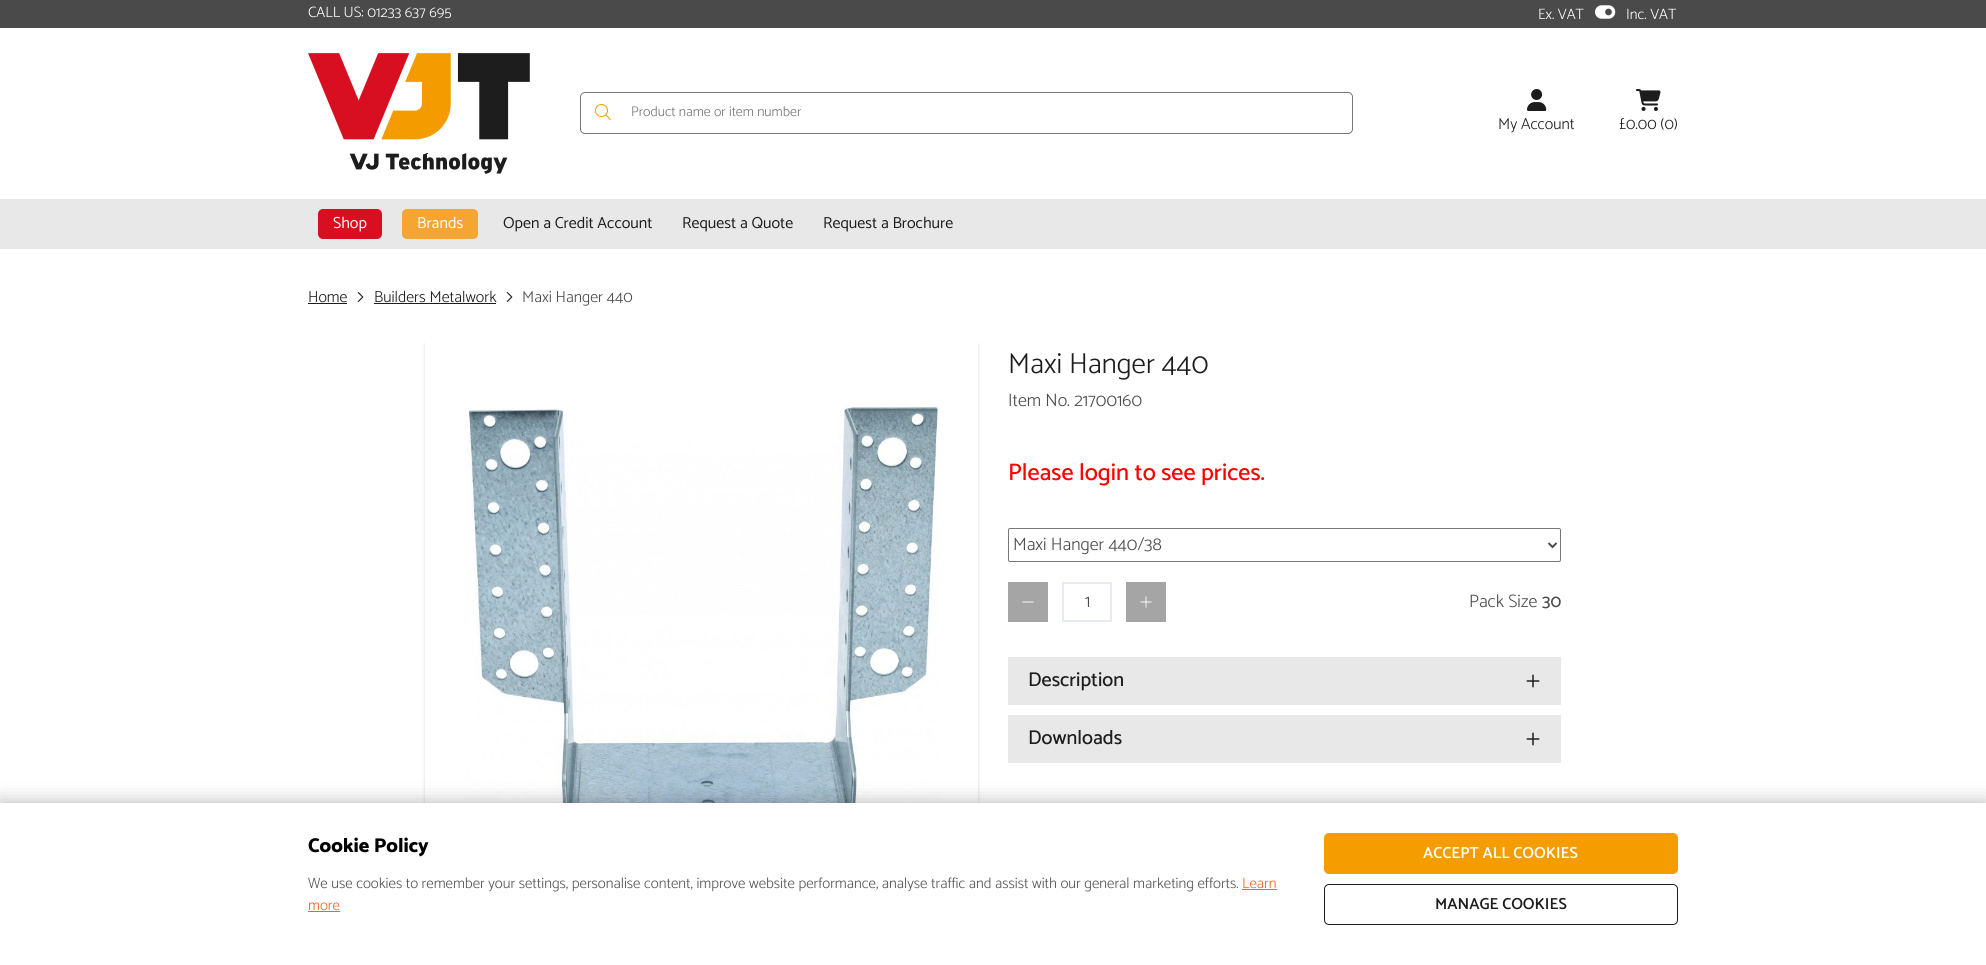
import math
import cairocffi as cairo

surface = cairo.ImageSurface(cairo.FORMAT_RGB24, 1986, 965)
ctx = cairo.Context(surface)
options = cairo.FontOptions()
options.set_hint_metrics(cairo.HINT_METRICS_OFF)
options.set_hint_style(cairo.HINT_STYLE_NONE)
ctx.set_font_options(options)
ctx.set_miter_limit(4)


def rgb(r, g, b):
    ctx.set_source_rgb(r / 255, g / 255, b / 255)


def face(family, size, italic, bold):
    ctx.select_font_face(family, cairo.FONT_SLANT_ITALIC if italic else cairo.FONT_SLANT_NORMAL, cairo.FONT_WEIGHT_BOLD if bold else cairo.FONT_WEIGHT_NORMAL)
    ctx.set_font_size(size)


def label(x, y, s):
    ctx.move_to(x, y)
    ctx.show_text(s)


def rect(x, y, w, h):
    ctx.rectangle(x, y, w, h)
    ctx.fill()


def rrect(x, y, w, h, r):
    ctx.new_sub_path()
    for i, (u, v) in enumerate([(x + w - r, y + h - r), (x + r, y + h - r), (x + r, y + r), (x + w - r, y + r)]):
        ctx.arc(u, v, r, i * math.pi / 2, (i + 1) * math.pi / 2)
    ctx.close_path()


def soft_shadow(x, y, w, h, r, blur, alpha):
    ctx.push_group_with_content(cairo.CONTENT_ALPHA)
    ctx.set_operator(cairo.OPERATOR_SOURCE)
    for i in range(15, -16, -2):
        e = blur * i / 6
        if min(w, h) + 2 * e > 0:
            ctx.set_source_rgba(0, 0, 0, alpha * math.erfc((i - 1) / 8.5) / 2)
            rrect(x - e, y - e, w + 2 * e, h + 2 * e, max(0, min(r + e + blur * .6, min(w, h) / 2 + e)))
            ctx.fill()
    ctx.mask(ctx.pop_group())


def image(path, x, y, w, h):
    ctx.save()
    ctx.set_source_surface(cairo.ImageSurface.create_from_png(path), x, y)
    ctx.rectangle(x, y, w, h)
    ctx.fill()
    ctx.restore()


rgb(255, 255, 255)
ctx.paint()
rgb(74, 74, 74)
rect(0, 0, 1986, 28)
face('Catamaran Light', 15, 0, 0)
rgb(255, 255, 255)
label(308, 17, 'CALL US: 01233 637 695')
label(1538, 19, 'Ex. VAT')
image('image0.png', 1595, 5, 21, 14)
label(1626, 19, 'Inc. VAT')
image('image1.png', 308, 53, 222, 121)
rrect(580.5, 92.5, 772, 41, 4.5)
rgb(119, 119, 119)
ctx.set_line_width(1)
ctx.stroke()
image('image2.png', 595, 104, 16, 16)
face('Catamaran Light', 14, 0, 0)
label(631, 116, 'Product name or item number')
image('image3.png', 1527, 89, 20, 22)
face('Catamaran Light', 16, 0, 0)
rgb(29, 29, 29)
label(1498, 129, 'My Account')
image('image4.png', 1636, 89, 25, 22)
label(1619, 129, '£0.00 (0)')
rgb(232, 232, 232)
rect(0, 199, 1986, 50)
rgb(216, 15, 33)
rrect(318, 209, 64, 30, 5)
ctx.fill()
face('Catamaran', 16, 0, 0)
rgb(255, 255, 255)
label(333, 228, 'Shop')
rgb(244, 165, 50)
rrect(402, 209, 76, 30, 5)
ctx.fill()
rgb(255, 255, 255)
label(417, 228, 'Brands')
rgb(29, 29, 29)
label(503, 228, 'Open a Credit Account')
label(682, 228, 'Request a Quote')
label(823, 228, 'Request a Brochure')
face('Catamaran Light', 16, 0, 0)
label(308, 302, 'Home')
rect(308, 303, 39, 1)
image('image5.png', 357, 292, 7, 10)
label(374, 302, 'Builders Metalwork')
rect(374, 303, 122, 1)
image('image5.png', 506, 292, 7, 10)
rgb(74, 74, 74)
label(522, 302, 'Maxi Hanger 440')
ctx.save()
ctx.set_fill_rule(cairo.FILL_RULE_EVEN_ODD)
ctx.new_path()
ctx.move_to(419, 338)
ctx.line_to(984, 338)
ctx.line_to(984, 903)
ctx.line_to(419, 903)
ctx.close_path()
ctx.move_to(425, 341)
ctx.line_to(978, 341)
ctx.line_to(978, 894)
ctx.line_to(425, 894)
ctx.close_path()
ctx.clip()
rgb(0, 0, 0)
soft_shadow(425, 344, 553, 553, 0, 1.5, 0.16)
ctx.restore()
image('image6.png', 465, 405, 475, 398)
face('Catamaran Light', 29, 0, 0)
rgb(29, 29, 29)
label(1008, 373, 'Maxi Hanger 440')
face('Catamaran Light', 18, 0, 0)
rgb(74, 74, 74)
label(1008, 406, 'Item No. 21700160')
face('Catamaran Medium', 24, 0, 0)
rgb(255, 0, 0)
label(1008, 480, 'Please login to see prices.')
rrect(1008.5, 528.5, 552, 33, 1.5)
rgb(118, 118, 118)
ctx.stroke()
ctx.new_path()
ctx.move_to(1548.5, 543)
ctx.line_to(1552.5, 547)
ctx.line_to(1556.5, 543)
rgb(74, 74, 74)
ctx.set_line_width(2)
ctx.stroke()
face('Catamaran Light', 18, 0, 0)
label(1013, 550, 'Maxi Hanger 440/38')
rgb(165, 165, 165)
rect(1008, 582, 40, 40)
image('image7.png', 1022, 601, 12, 2)
ctx.rectangle(1063, 583, 48, 38)
rgb(233, 235, 243)
ctx.stroke()
rgb(74, 74, 74)
label(1085, 607, '1')
rgb(165, 165, 165)
rect(1126, 582, 40, 40)
image('image8.png', 1140, 596, 12, 12)
rgb(74, 74, 74)
label(1469, 607, 'Pack Size')
face('Catamaran Medium', 18, 0, 0)
label(1542, 607, '30')
rgb(232, 232, 232)
rect(1008, 657, 553, 48)
face('Catamaran Medium', 20, 0, 0)
rgb(29, 29, 29)
label(1028, 686, 'Description')
image('image9.png', 1526, 674, 14, 14)
rgb(232, 232, 232)
rect(1008, 715, 553, 48)
rgb(29, 29, 29)
label(1028, 744, 'Downloads')
image('image9.png', 1526, 732, 14, 14)
rgb(0, 0, 0)
soft_shadow(0, 803, 1986, 162, 0, 10, 0.3)
rgb(255, 255, 255)
rect(0, 803, 1986, 162)
face('Catamaran ExtraBold', 20, 0, 0)
rgb(0, 0, 0)
label(308, 852, 'Cookie Policy')
face('Catamaran Light', 15, 0, 0)
rgb(85, 85, 85)
label(308, 888, 'We use cookies to remember your settings, personalise content, improve website performance, analyse traffic and assist with our general marketing efforts.')
rgb(235, 103, 41)
label(1242, 888, 'Learn')
rect(1242, 889, 35, 1)
label(308, 910, 'more')
rect(308, 911, 32, 1)
rgb(245, 156, 0)
rrect(1324.5, 833.5, 353, 40, 4.5)
ctx.fill_preserve()
ctx.set_line_width(1)
ctx.stroke()
face('Catamaran SemiBold', 16, 0, 0)
rgb(255, 255, 255)
label(1423, 858, 'ACCEPT ALL COOKIES')
rrect(1324.5, 884.5, 353, 40, 4.5)
rgb(29, 29, 29)
ctx.stroke()
label(1435, 909, 'MANAGE COOKIES')
surface.write_to_png('render.png')
